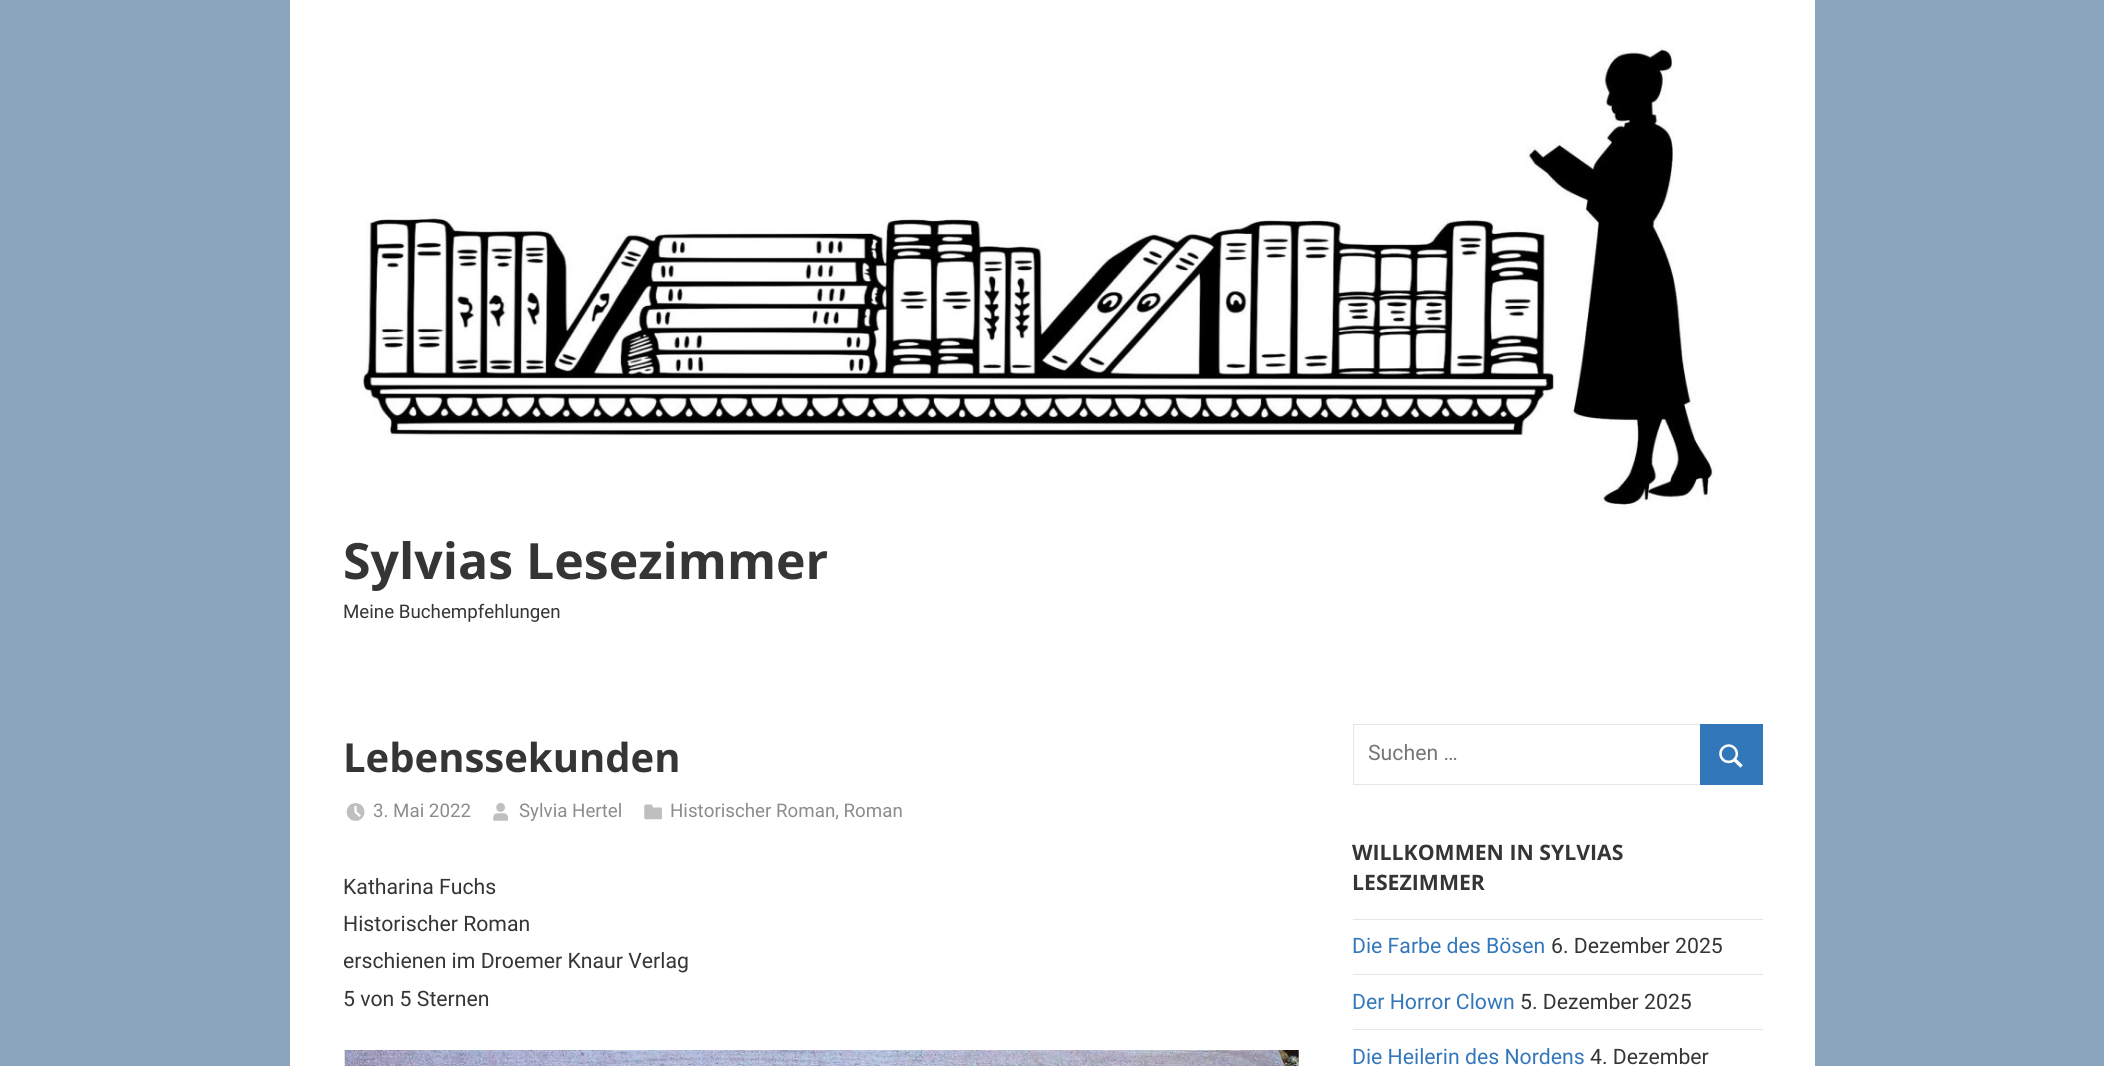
import math
import cairocffi as cairo

surface = cairo.ImageSurface(cairo.FORMAT_RGB24, 2104, 1066)
ctx = cairo.Context(surface)
options = cairo.FontOptions()
options.set_hint_metrics(cairo.HINT_METRICS_OFF)
options.set_hint_style(cairo.HINT_STYLE_NONE)
ctx.set_font_options(options)
ctx.set_miter_limit(4)


def rgb(r, g, b):
    ctx.set_source_rgb(r / 255, g / 255, b / 255)


def face(family, size, italic, bold):
    ctx.select_font_face(family, cairo.FONT_SLANT_ITALIC if italic else cairo.FONT_SLANT_NORMAL, cairo.FONT_WEIGHT_BOLD if bold else cairo.FONT_WEIGHT_NORMAL)
    ctx.set_font_size(size)


def label(x, y, s):
    ctx.move_to(x, y)
    ctx.show_text(s)


def rect(x, y, w, h):
    ctx.rectangle(x, y, w, h)
    ctx.fill()


def image(path, x, y, w, h):
    ctx.save()
    ctx.set_source_surface(cairo.ImageSurface.create_from_png(path), x, y)
    ctx.rectangle(x, y, w, h)
    ctx.fill()
    ctx.restore()


rgb(139, 165, 191)
ctx.paint()
rgb(255, 255, 255)
rect(290, 0, 1525, 1066)
image('image0.png', 361, 47, 1354, 461)
face('Open Sans', 50, 0, 1)
rgb(53, 53, 53)
label(343, 579, 'Sylvias Lesezimmer')
face('Roboto', 18.75, 0, 0)
label(343, 618, 'Meine Buchempfehlungen')
face('Open Sans', 40, 0, 1)
label(343, 772, 'Lebenssekunden')
image('image1.png', 346, 803, 19, 18)
face('Roboto', 18.75, 0, 0)
rgb(140, 140, 140)
label(373, 817, '3. Mai 2022')
image('image2.png', 493, 803, 15, 18)
label(519, 817, 'Sylvia Hertel')
image('image3.png', 644, 804, 18, 16)
label(670, 817, 'Historischer Roman, Roman')
ctx.rectangle(1353.5, 724.5, 409, 60)
rgb(230, 230, 230)
ctx.set_line_width(1)
ctx.stroke()
face('Roboto', 21.25, 0, 0)
rgb(117, 117, 117)
label(1368, 760, 'Suchen …')
rgb(51, 119, 187)
rect(1700, 724, 63, 61)
image('image4.png', 1719, 744, 24, 24)
face('Open Sans', 21.25, 0, 1)
rgb(53, 53, 53)
label(1352, 860, 'WILLKOMMEN IN SYLVIAS')
label(1352, 890, 'LESEZIMMER')
rgb(230, 230, 230)
rect(1353, 919, 410, 1)
face('Roboto', 21.25, 0, 0)
rgb(51, 119, 187)
label(1352, 953, 'Die Farbe des Bösen')
rgb(53, 53, 53)
label(1551, 953, '6. Dezember 2025')
rgb(230, 230, 230)
rect(1353, 974, 410, 1)
rgb(51, 119, 187)
label(1352, 1009, 'Der Horror Clown')
rgb(53, 53, 53)
label(1520, 1009, '5. Dezember 2025')
rgb(230, 230, 230)
rect(1353, 1029, 410, 1)
rgb(51, 119, 187)
label(1352, 1064, 'Die Heilerin des Nordens')
rgb(53, 53, 53)
label(1590, 1064, '4. Dezember')
label(343, 894, 'Katharina Fuchs')
label(343, 931, 'Historischer Roman')
label(343, 968, 'erschienen im Droemer Knaur Verlag')
label(343, 1006, '5 von 5 Sternen')
image('image5.png', 344, 1050, 955, 16)
surface.write_to_png('render.png')
